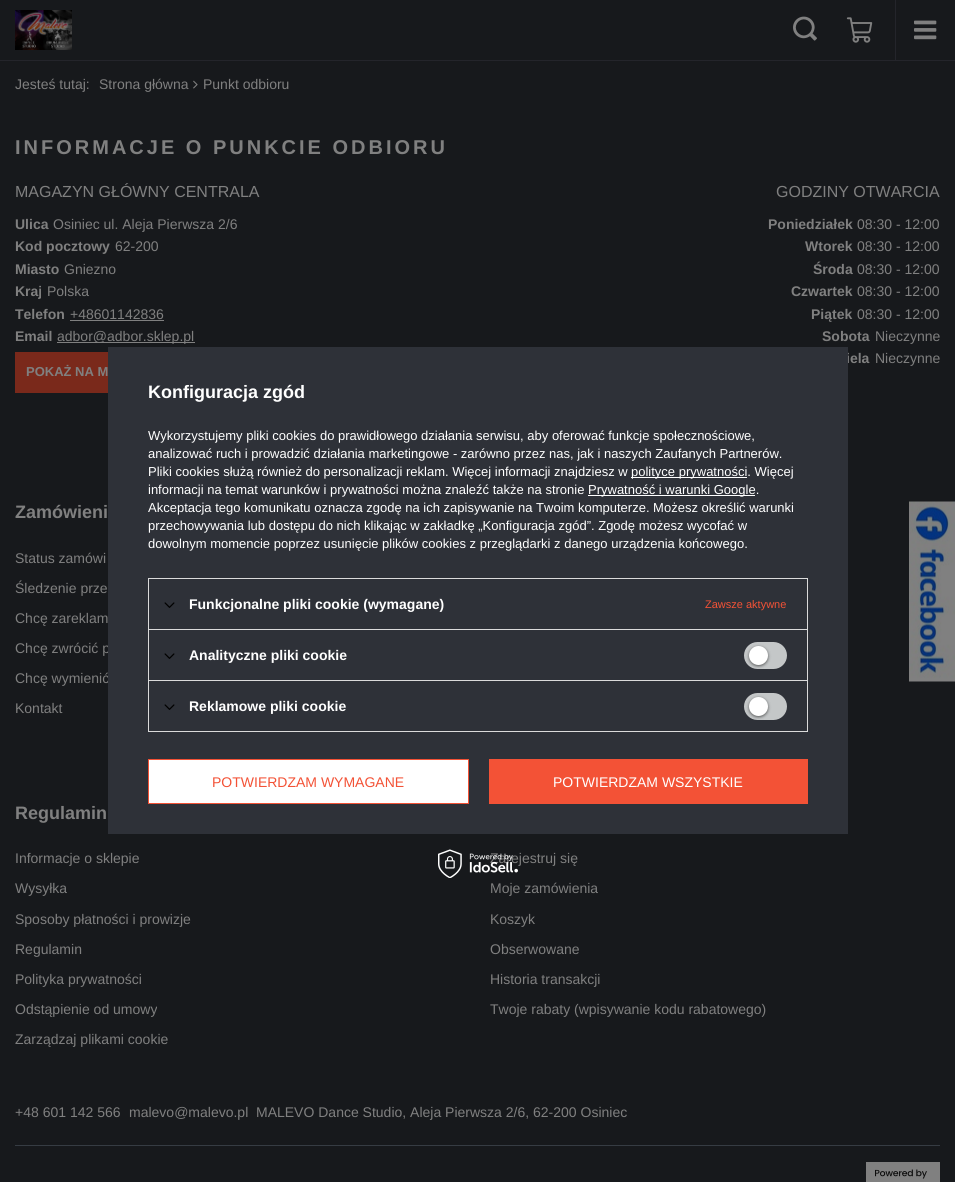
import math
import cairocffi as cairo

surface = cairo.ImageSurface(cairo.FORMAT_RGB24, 955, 1182)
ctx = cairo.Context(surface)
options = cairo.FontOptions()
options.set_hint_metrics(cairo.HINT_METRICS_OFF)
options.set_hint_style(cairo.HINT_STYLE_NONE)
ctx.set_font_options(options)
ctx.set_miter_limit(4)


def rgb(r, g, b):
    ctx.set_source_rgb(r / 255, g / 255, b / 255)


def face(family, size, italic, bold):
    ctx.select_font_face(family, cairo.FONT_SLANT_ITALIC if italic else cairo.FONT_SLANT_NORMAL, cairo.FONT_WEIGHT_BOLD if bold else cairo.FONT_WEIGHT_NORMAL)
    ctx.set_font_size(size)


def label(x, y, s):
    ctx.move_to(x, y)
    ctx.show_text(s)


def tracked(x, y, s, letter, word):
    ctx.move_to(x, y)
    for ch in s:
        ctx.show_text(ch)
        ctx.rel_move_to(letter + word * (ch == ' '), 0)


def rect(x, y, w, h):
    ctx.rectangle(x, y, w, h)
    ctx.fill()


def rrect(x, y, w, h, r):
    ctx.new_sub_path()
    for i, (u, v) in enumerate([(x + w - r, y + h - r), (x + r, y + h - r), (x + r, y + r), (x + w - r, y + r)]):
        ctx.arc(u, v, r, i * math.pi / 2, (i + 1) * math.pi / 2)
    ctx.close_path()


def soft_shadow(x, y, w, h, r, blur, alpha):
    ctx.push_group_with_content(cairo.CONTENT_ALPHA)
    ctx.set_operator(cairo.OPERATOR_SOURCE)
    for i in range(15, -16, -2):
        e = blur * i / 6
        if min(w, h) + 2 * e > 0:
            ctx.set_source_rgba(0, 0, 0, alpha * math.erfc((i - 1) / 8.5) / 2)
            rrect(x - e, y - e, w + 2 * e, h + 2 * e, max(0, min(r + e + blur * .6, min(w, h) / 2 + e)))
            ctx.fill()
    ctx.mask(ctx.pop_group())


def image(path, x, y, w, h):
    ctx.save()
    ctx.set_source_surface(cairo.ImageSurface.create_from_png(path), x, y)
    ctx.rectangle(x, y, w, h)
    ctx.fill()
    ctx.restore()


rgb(23, 25, 28)
ctx.paint()
rgb(36, 37, 43)
rect(0, 60, 955, 1)
image('image0.png', 15, 10, 57, 40)
image('image1.png', 793, 16, 24, 25)
image('image2.png', 846, 17, 27, 26)
rect(895, 0, 1, 60)
image('image3.png', 914, 20, 23, 20)
face('Liberation Sans', 14, 0, 0)
rgb(128, 128, 128)
label(15, 89, 'Jesteś tutaj:')
label(99, 89, 'Strona główna')
image('image4.png', 193, 80, 5, 9)
label(203, 89, 'Punkt odbioru')
face('Liberation Sans', 20, 0, 1)
tracked(15, 154, 'INFORMACJE O PUNKCIE ODBIORU', 3, 0)
face('Liberation Sans', 16, 0, 0)
label(15, 197, 'MAGAZYN GŁÓWNY CENTRALA')
face('Liberation Sans', 14, 0, 1)
label(15, 229, 'Ulica')
face('Liberation Sans', 14, 0, 0)
label(53, 229, 'Osiniec ul. Aleja Pierwsza 2/6')
face('Liberation Sans', 14, 0, 1)
label(15, 251, 'Kod pocztowy')
face('Liberation Sans', 14, 0, 0)
label(115, 251, '62-200')
face('Liberation Sans', 14, 0, 1)
label(15, 274, 'Miasto')
face('Liberation Sans', 14, 0, 0)
label(64, 274, 'Gniezno')
face('Liberation Sans', 14, 0, 1)
label(15, 296, 'Kraj')
face('Liberation Sans', 14, 0, 0)
label(47, 296, 'Polska')
face('Liberation Sans', 14, 0, 1)
label(15, 319, 'Telefon')
face('Liberation Sans', 14, 0, 0)
label(70, 319, '+48601142836')
rect(70, 320, 94, 1)
face('Liberation Sans', 14, 0, 1)
label(15, 341, 'Email')
rect(57, 342, 138, 1)
face('Liberation Sans', 14, 0, 0)
label(57, 341, 'adbor@adbor.sklep.pl')
rgb(122, 41, 27)
rect(15, 352, 93, 41)
face('Liberation Sans', 13, 0, 1)
rgb(128, 128, 128)
label(26, 376, 'POKAŻ NA M')
face('Liberation Sans', 16, 0, 0)
label(776, 197, 'GODZINY OTWARCIA')
face('Liberation Sans', 14, 0, 1)
label(768, 229, 'Poniedziałek')
face('Liberation Sans', 14, 0, 0)
label(857, 229, '08:30 - 12:00')
face('Liberation Sans', 14, 0, 1)
label(805, 251, 'Wtorek')
face('Liberation Sans', 14, 0, 0)
label(857, 251, '08:30 - 12:00')
face('Liberation Sans', 14, 0, 1)
label(813, 274, 'Środa')
face('Liberation Sans', 14, 0, 0)
label(857, 274, '08:30 - 12:00')
face('Liberation Sans', 14, 0, 1)
label(791, 296, 'Czwartek')
face('Liberation Sans', 14, 0, 0)
label(857, 296, '08:30 - 12:00')
face('Liberation Sans', 14, 0, 1)
label(811, 319, 'Piątek')
face('Liberation Sans', 14, 0, 0)
label(857, 319, '08:30 - 12:00')
face('Liberation Sans', 14, 0, 1)
label(822, 341, 'Sobota')
face('Liberation Sans', 14, 0, 0)
label(875, 341, 'Nieczynne')
face('Liberation Sans', 14, 0, 1)
label(846, 363, 'iela')
face('Liberation Sans', 14, 0, 0)
label(875, 363, 'Nieczynne')
label(15, 653, 'Chcę zwrócić p')
label(15, 683, 'Chcę wymienić')
rgb(46, 49, 56)
rect(108, 347, 740, 487)
face('Liberation Sans', 18, 0, 1)
rgb(255, 255, 255)
label(148, 398, 'Konfiguracja zgód')
face('Liberation Sans', 13, 0, 0)
label(148, 440, 'Wykorzystujemy pliki cookies do prawidłowego działania serwisu, aby oferować funkcje społecznościowe,')
label(148, 458, 'analizować ruch i prowadzić działania marketingowe - zarówno przez nas, jak i naszych Zaufanych Partnerów.')
label(148, 476, 'Pliki cookies służą również do personalizacji reklam. Więcej informacji znajdziesz w')
rect(631, 477, 116, 1)
label(631, 476, 'polityce prywatności. Więcej')
label(148, 494, 'informacji na temat warunków i prywatności można znaleźć także na stronie')
rect(588, 495, 167, 1)
label(588, 494, 'Prywatność i warunki Google.')
label(148, 512, 'Akceptacja tego komunikatu oznacza zgodę na ich zapisywanie na Twoim komputerze. Możesz określić warunki')
label(148, 530, 'przechowywania lub dostępu do nich klikając w zakładkę „Konfiguracja zgód”. Zgodę możesz wycofać w')
label(148, 548, 'dowolnym momencie poprzez usunięcie plików cookies z przeglądarki z danego urządzenia końcowego.')
rgb(219, 219, 219)
rect(148, 578, 660, 1)
rect(807, 578, 1, 51)
rect(148, 578, 1, 51)
image('image5.png', 164, 602, 11, 6)
face('Liberation Sans', 14, 0, 1)
rgb(255, 255, 255)
label(189, 609, 'Funkcjonalne pliki cookie (wymagane)')
face('Liberation Sans', 11, 0, 0)
rgb(243, 82, 54)
label(705, 608, 'Zawsze aktywne')
rgb(219, 219, 219)
rect(148, 629, 660, 1)
rect(807, 629, 1, 51)
rect(148, 629, 1, 51)
image('image5.png', 164, 653, 11, 6)
face('Liberation Sans', 14, 0, 1)
rgb(255, 255, 255)
label(189, 660, 'Analityczne pliki cookie')
rgb(196, 199, 200)
rrect(744, 642, 43, 27, 13.5)
ctx.fill()
rgb(0, 0, 0)
soft_shadow(749, 647, 19, 19, 9.5, 1.5, 0.56)
rgb(255, 255, 255)
ctx.arc(758.5, 655.5, 9.5, 0, 2 * math.pi)
ctx.fill()
ctx.rectangle(148.5, 680.5, 659, 51)
rgb(219, 219, 219)
ctx.set_line_width(1)
ctx.stroke()
image('image5.png', 164, 704, 11, 6)
rgb(255, 255, 255)
label(189, 711, 'Reklamowe pliki cookie')
rgb(196, 199, 200)
rrect(744, 693, 43, 27, 13.5)
ctx.fill()
rgb(0, 0, 0)
soft_shadow(749, 698, 19, 19, 9.5, 1.5, 0.56)
rgb(255, 255, 255)
ctx.arc(758.5, 706.5, 9.5, 0, 2 * math.pi)
ctx.fill()
ctx.rectangle(148.5, 759.5, 320, 44)
ctx.fill_preserve()
rgb(243, 82, 54)
ctx.stroke()
face('Liberation Sans', 14, 0, 0)
label(212, 787, 'POTWIERDZAM WYMAGANE')
rect(489, 759, 319, 45)
rgb(255, 255, 255)
label(553, 787, 'POTWIERDZAM WSZYSTKIE')
rgb(128, 128, 128)
label(490, 863, 'Zarejestruj się')
image('image6.png', 438, 849, 80, 29)
image('image7.png', 909, 501, 46, 181)
face('Liberation Sans', 18, 0, 1)
label(15, 518, 'Zamówieni')
face('Liberation Sans', 14, 0, 0)
label(15, 563, 'Status zamówi')
label(15, 593, 'Śledzenie prze')
label(15, 623, 'Chcę zareklam')
label(15, 713, 'Kontakt')
face('Liberation Sans', 18, 0, 1)
label(15, 819, 'Regulamin')
face('Liberation Sans', 14, 0, 0)
label(15, 863, 'Informacje o sklepie')
label(15, 893, 'Wysyłka')
label(15, 924, 'Sposoby płatności i prowizje')
label(15, 954, 'Regulamin')
label(15, 984, 'Polityka prywatności')
label(15, 1014, 'Odstąpienie od umowy')
label(15, 1044, 'Zarządzaj plikami cookie')
label(490, 893, 'Moje zamówienia')
label(490, 924, 'Koszyk')
label(490, 954, 'Obserwowane')
label(490, 984, 'Historia transakcji')
label(490, 1014, 'Twoje rabaty (wpisywanie kodu rabatowego)')
rgb(54, 60, 67)
rect(15, 1145, 925, 1)
rgb(128, 128, 128)
label(15, 1117, '+48 601 142 566')
label(129, 1117, 'malevo@malevo.pl')
label(256, 1117, 'MALEVO Dance Studio, Aleja Pierwsza 2/6, 62-200 Osiniec')
image('image8.png', 866, 1162, 74, 20)
surface.write_to_png('render.png')
